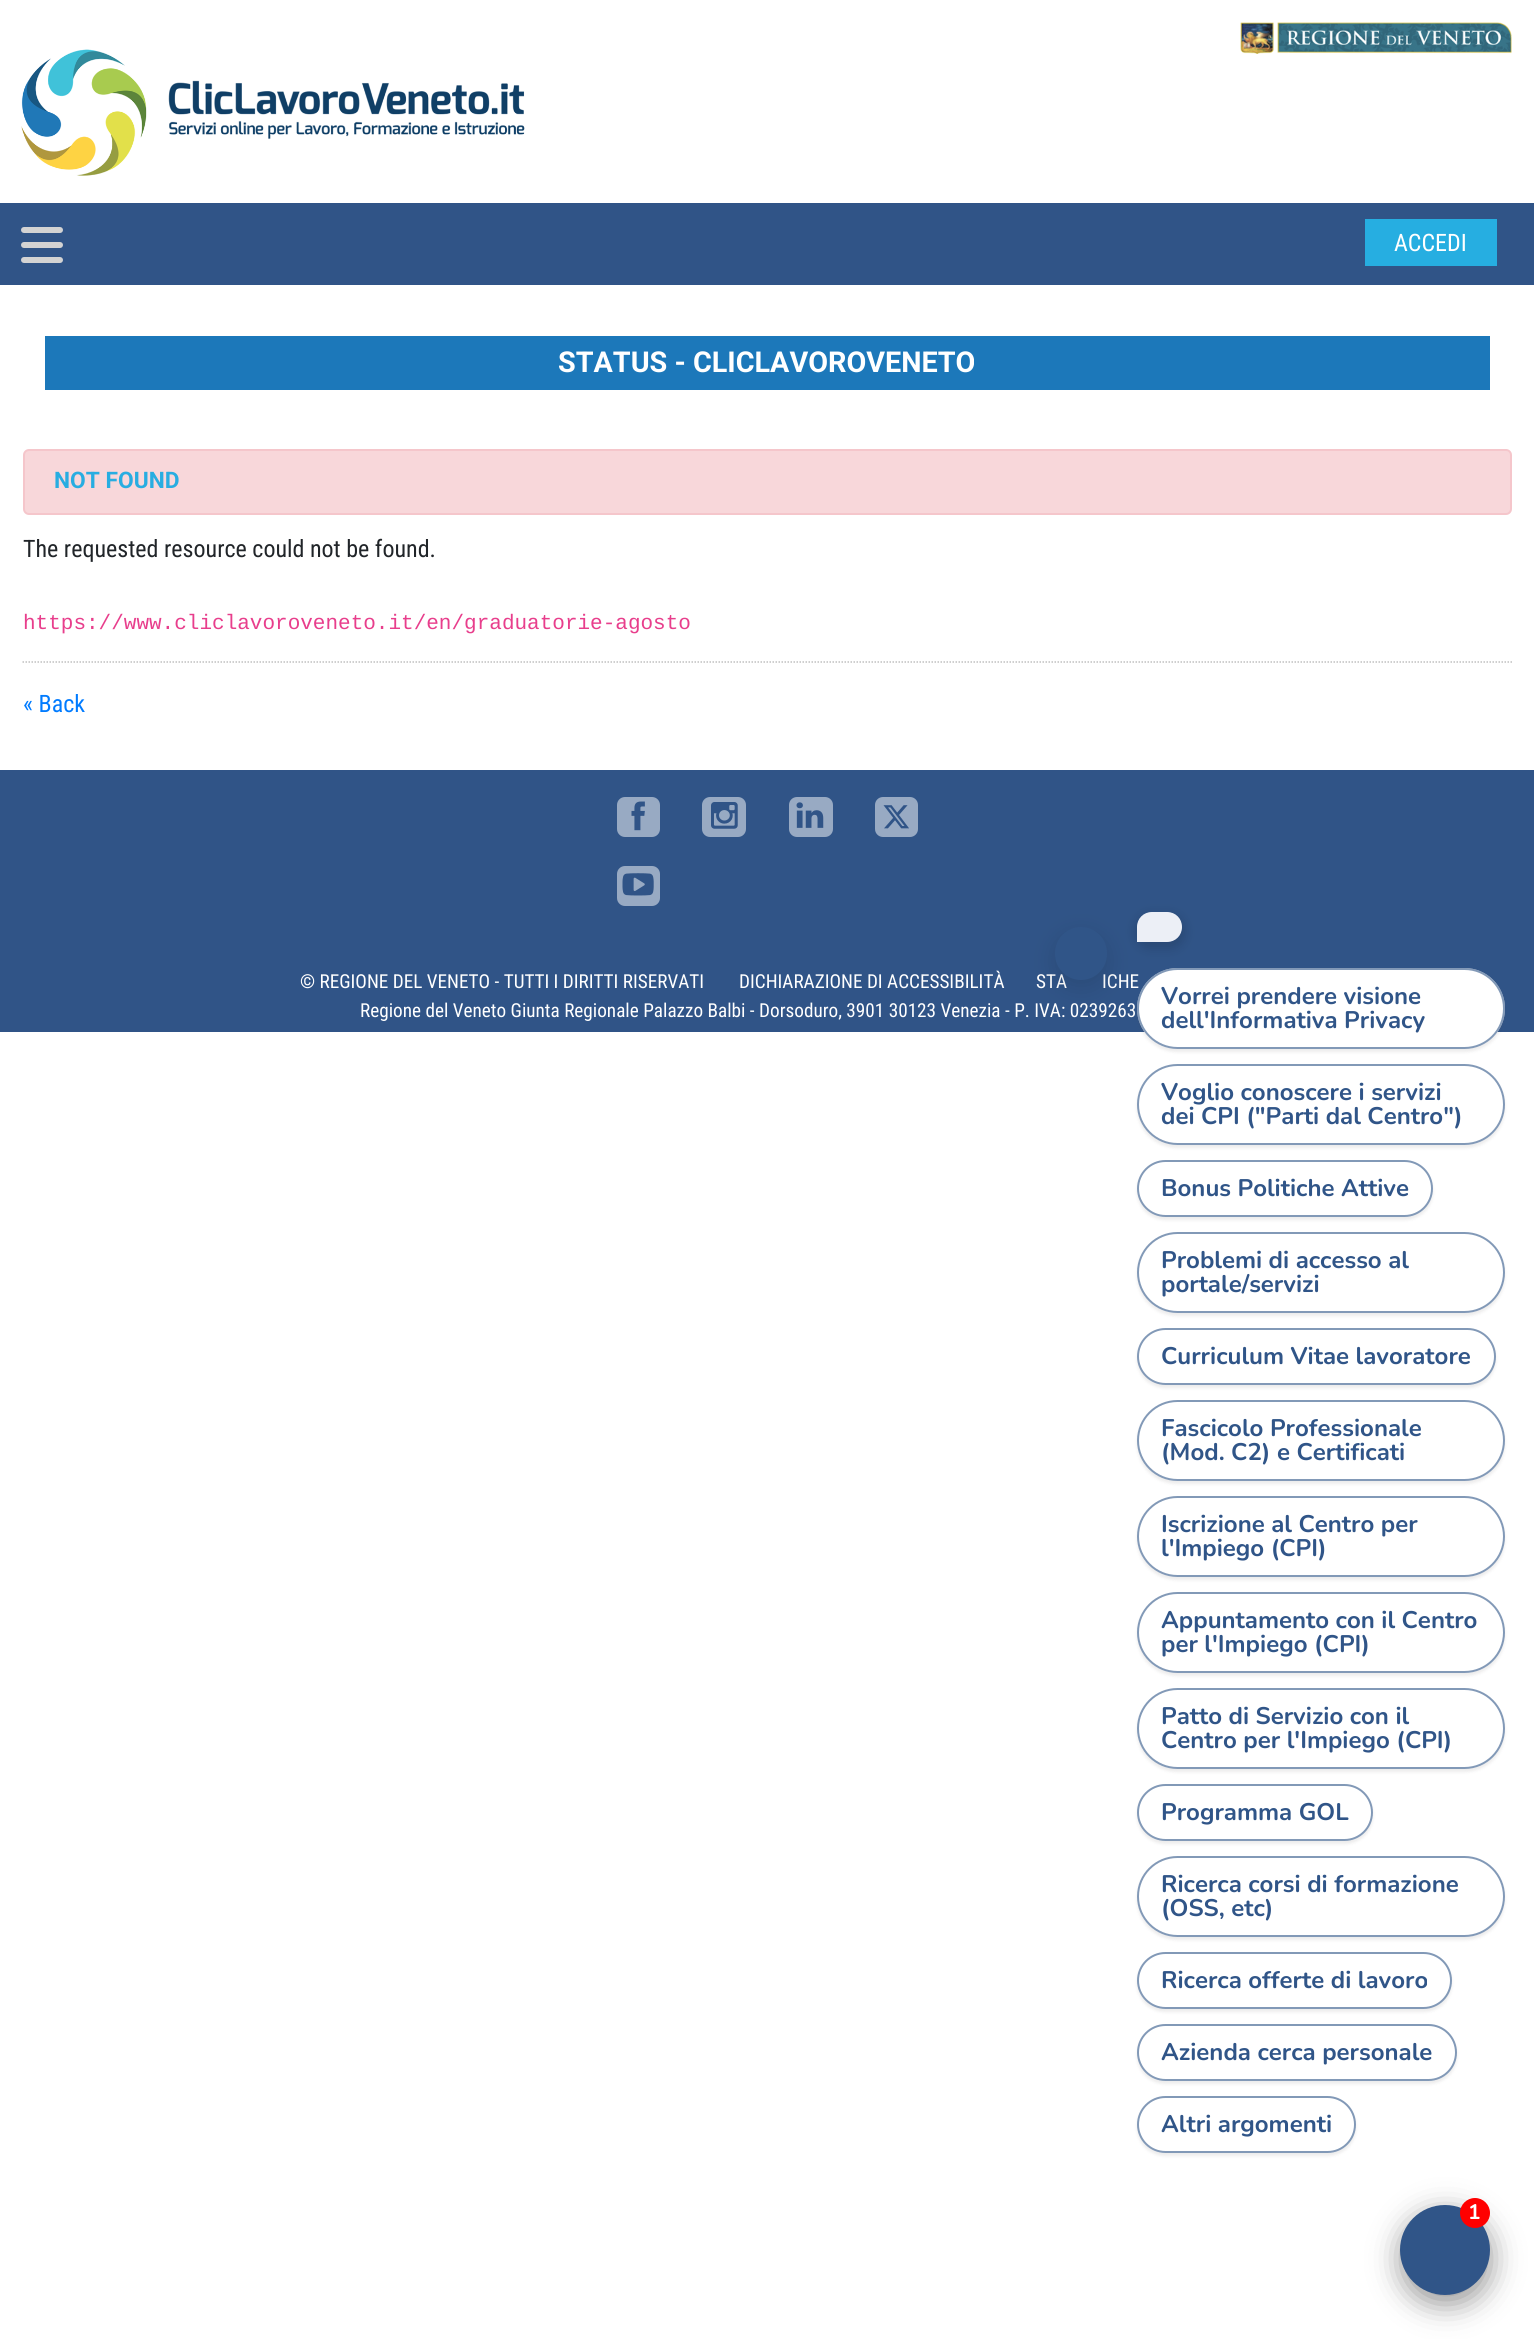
import math
import cairocffi as cairo

surface = cairo.ImageSurface(cairo.FORMAT_RGB24, 1534, 2339)
ctx = cairo.Context(surface)
options = cairo.FontOptions()
options.set_hint_metrics(cairo.HINT_METRICS_OFF)
options.set_hint_style(cairo.HINT_STYLE_NONE)
ctx.set_font_options(options)
ctx.set_miter_limit(4)


def rgb(r, g, b):
    ctx.set_source_rgb(r / 255, g / 255, b / 255)


def face(family, size, italic, bold):
    ctx.select_font_face(family, cairo.FONT_SLANT_ITALIC if italic else cairo.FONT_SLANT_NORMAL, cairo.FONT_WEIGHT_BOLD if bold else cairo.FONT_WEIGHT_NORMAL)
    ctx.set_font_size(size)


def label(x, y, s):
    ctx.move_to(x, y)
    ctx.show_text(s)


def rect(x, y, w, h):
    ctx.rectangle(x, y, w, h)
    ctx.fill()


def rrect(x, y, w, h, r):
    ctx.new_sub_path()
    for i, (u, v) in enumerate([(x + w - r, y + h - r), (x + r, y + h - r), (x + r, y + r), (x + w - r, y + r)]):
        ctx.arc(u, v, r, i * math.pi / 2, (i + 1) * math.pi / 2)
    ctx.close_path()


def soft_shadow(x, y, w, h, r, blur, alpha):
    ctx.push_group_with_content(cairo.CONTENT_ALPHA)
    ctx.set_operator(cairo.OPERATOR_SOURCE)
    for i in range(15, -16, -2):
        e = blur * i / 6
        if min(w, h) + 2 * e > 0:
            ctx.set_source_rgba(0, 0, 0, alpha * math.erfc((i - 1) / 8.5) / 2)
            rrect(x - e, y - e, w + 2 * e, h + 2 * e, max(0, min(r + e + blur * .6, min(w, h) / 2 + e)))
            ctx.fill()
    ctx.mask(ctx.pop_group())


def image(path, x, y, w, h):
    ctx.save()
    ctx.set_source_surface(cairo.ImageSurface.create_from_png(path), x, y)
    ctx.rectangle(x, y, w, h)
    ctx.fill()
    ctx.restore()


rgb(255, 255, 255)
ctx.paint()
rgb(48, 84, 135)
rect(0, 203, 1534, 82)
rgb(211, 211, 211)
rrect(21, 242, 42, 6, 3)
ctx.fill()
rrect(21, 227, 42, 6, 3)
ctx.fill()
rrect(21, 257, 42, 6, 3)
ctx.fill()
image('image0.png', 1240, 22, 272, 32)
image('image1.png', 21, 49, 504, 127)
rgb(38, 174, 225)
rect(1365, 219, 132, 47)
face('Roboto Condensed', 24, 0, 0)
rgb(255, 255, 255)
label(1394, 251, 'ACCEDI')
rgb(28, 120, 186)
rect(45, 336, 1445, 54)
face('Roboto', 28.75, 0, 1)
rgb(255, 255, 255)
label(558, 372, 'STATUS - CLICLAVOROVENETO')
rgb(248, 215, 218)
rrect(24, 450, 1487, 64, 5)
ctx.fill_preserve()
rgb(245, 198, 203)
ctx.stroke()
face('Roboto', 22.75, 0, 1)
rgb(40, 173, 225)
label(54, 488, 'NOT FOUND')
face('Roboto Condensed', 24, 0, 0)
rgb(33, 37, 41)
label(23, 557, 'The requested resource could not be found.')
face('Liberation Mono', 21, 0, 0)
rgb(232, 62, 140)
label(23, 629, 'https://www.cliclavoroveneto.it/en/graduatorie-agosto')
ctx.new_path()
ctx.move_to(22.5, 662)
ctx.line_to(1512, 662)
rgb(191, 191, 191)
ctx.set_line_width(1.5)
ctx.set_dash([1.5, 1.5])
ctx.stroke()
face('Roboto Condensed', 24, 0, 0)
rgb(0, 123, 255)
label(23, 712, '« Back')
rgb(48, 84, 135)
rect(0, 770, 1534, 262)
rgb(152, 170, 195)
rrect(617, 797, 43, 40, 8)
ctx.fill()
image('image2.png', 631, 801, 14, 30)
rrect(702, 797, 44, 40, 8)
ctx.fill()
image('image3.png', 711, 802, 27, 27)
rrect(789, 797, 44, 40, 8)
ctx.fill()
image('image4.png', 796, 802, 28, 26)
rrect(875, 797, 43, 40, 8)
ctx.fill()
image('image5.png', 883, 805, 26, 24)
rrect(617, 866, 43, 40, 8)
ctx.fill()
image('image6.png', 622, 873, 32, 23)
face('Roboto Condensed', 19.2, 0, 0)
rgb(255, 255, 255)
label(300, 988, '© REGIONE DEL VENETO - TUTTI I DIRITTI RISERVATI')
label(739, 988, 'DICHIARAZIONE DI ACCESSIBILITÀ')
label(1036, 988, 'STA')
label(1102, 988, 'ICHE')
label(360, 1017, 'Regione del Veneto Giunta Regionale Palazzo Balbi - Dorsoduro, 3901 30123 Venezia - P. IVA: 0239263')
rgb(0, 0, 0)
soft_shadow(1053, 933, 56, 56, 28, 10.5, 0.1)
rgb(48, 85, 136)
rrect(1055, 927, 52, 53, 26)
ctx.fill()
rgb(0, 0, 0)
soft_shadow(1136, 915, 48, 33, 16.5, 6, 0.15)
rgb(236, 239, 246)
ctx.new_path()
ctx.move_to(1152, 912)
ctx.line_to(1167, 912)
ctx.curve_to(1175.5, 912, 1182, 918.5, 1182, 927)
ctx.curve_to(1182, 935.5, 1175.5, 942, 1167, 942)
ctx.line_to(1137, 942)
ctx.line_to(1137, 927)
ctx.curve_to(1137, 918.5, 1143.5, 912, 1152, 912)
ctx.close_path()
ctx.fill()
rgb(73, 67, 67)
soft_shadow(1137, 971, 368, 81, 40.5, 1.5, 0.1)
rgb(255, 255, 255)
rrect(1137, 968, 368, 81, 40.5)
ctx.fill()
rrect(1138, 969, 366, 79, 39.5)
ctx.set_source_rgba(0.188, 0.333, 0.533, 0.6)
ctx.set_line_width(2)
ctx.set_dash([])
ctx.stroke()
face('Nunito', 24, 0, 1)
rgb(48, 85, 136)
label(1161, 1004, 'Vorrei prendere visione')
label(1161, 1028, 'dell\'Informativa Privacy')
rgb(73, 67, 67)
soft_shadow(1137, 1067, 368, 81, 40.5, 1.5, 0.1)
rgb(255, 255, 255)
rrect(1137, 1064, 368, 81, 40.5)
ctx.fill()
rrect(1138, 1065, 366, 79, 39.5)
ctx.set_source_rgba(0.188, 0.333, 0.533, 0.6)
ctx.stroke()
rgb(48, 85, 136)
label(1161, 1100, 'Voglio conoscere i servizi')
label(1161, 1124, 'dei CPI ("Parti dal Centro")')
rgb(73, 67, 67)
soft_shadow(1137, 1163, 296, 57, 28.5, 1.5, 0.1)
rgb(255, 255, 255)
rrect(1137, 1160, 296, 57, 28.5)
ctx.fill()
rrect(1138, 1161, 294, 55, 27.5)
ctx.set_source_rgba(0.188, 0.333, 0.533, 0.6)
ctx.stroke()
rgb(48, 85, 136)
label(1161, 1196, 'Bonus Politiche Attive')
rgb(73, 67, 67)
soft_shadow(1137, 1235, 368, 81, 40.5, 1.5, 0.1)
rgb(255, 255, 255)
rrect(1137, 1232, 368, 81, 40.5)
ctx.fill()
rrect(1138, 1233, 366, 79, 39.5)
ctx.set_source_rgba(0.188, 0.333, 0.533, 0.6)
ctx.stroke()
rgb(48, 85, 136)
label(1161, 1268, 'Problemi di accesso al')
label(1161, 1292, 'portale/servizi')
rgb(73, 67, 67)
soft_shadow(1137, 1331, 359, 57, 28.5, 1.5, 0.1)
rgb(255, 255, 255)
rrect(1137, 1328, 359, 57, 28.5)
ctx.fill()
rrect(1138, 1329, 357, 55, 27.5)
ctx.set_source_rgba(0.188, 0.333, 0.533, 0.6)
ctx.stroke()
rgb(48, 85, 136)
label(1161, 1364, 'Curriculum Vitae lavoratore')
rgb(73, 67, 67)
soft_shadow(1137, 1403, 368, 81, 40.5, 1.5, 0.1)
rgb(255, 255, 255)
rrect(1137, 1400, 368, 81, 40.5)
ctx.fill()
rrect(1138, 1401, 366, 79, 39.5)
ctx.set_source_rgba(0.188, 0.333, 0.533, 0.6)
ctx.stroke()
rgb(48, 85, 136)
label(1161, 1436, 'Fascicolo Professionale')
label(1161, 1460, '(Mod. C2) e Certificati')
rgb(73, 67, 67)
soft_shadow(1137, 1499, 368, 81, 40.5, 1.5, 0.1)
rgb(255, 255, 255)
rrect(1137, 1496, 368, 81, 40.5)
ctx.fill()
rrect(1138, 1497, 366, 79, 39.5)
ctx.set_source_rgba(0.188, 0.333, 0.533, 0.6)
ctx.stroke()
rgb(48, 85, 136)
label(1161, 1532, 'Iscrizione al Centro per')
label(1161, 1556, 'l\'Impiego (CPI)')
rgb(73, 67, 67)
soft_shadow(1137, 1595, 368, 81, 40.5, 1.5, 0.1)
rgb(255, 255, 255)
rrect(1137, 1592, 368, 81, 40.5)
ctx.fill()
rrect(1138, 1593, 366, 79, 39.5)
ctx.set_source_rgba(0.188, 0.333, 0.533, 0.6)
ctx.stroke()
rgb(48, 85, 136)
label(1161, 1628, 'Appuntamento con il Centro')
label(1161, 1652, 'per l\'Impiego (CPI)')
rgb(73, 67, 67)
soft_shadow(1137, 1691, 368, 81, 40.5, 1.5, 0.1)
rgb(255, 255, 255)
rrect(1137, 1688, 368, 81, 40.5)
ctx.fill()
rrect(1138, 1689, 366, 79, 39.5)
ctx.set_source_rgba(0.188, 0.333, 0.533, 0.6)
ctx.stroke()
rgb(48, 85, 136)
label(1161, 1724, 'Patto di Servizio con il')
label(1161, 1748, 'Centro per l\'Impiego (CPI)')
rgb(73, 67, 67)
soft_shadow(1137, 1787, 236, 57, 28.5, 1.5, 0.1)
rgb(255, 255, 255)
rrect(1137, 1784, 236, 57, 28.5)
ctx.fill()
rrect(1138, 1785, 234, 55, 27.5)
ctx.set_source_rgba(0.188, 0.333, 0.533, 0.6)
ctx.stroke()
rgb(48, 85, 136)
label(1161, 1820, 'Programma GOL')
rgb(73, 67, 67)
soft_shadow(1137, 1859, 368, 81, 40.5, 1.5, 0.1)
rgb(255, 255, 255)
rrect(1137, 1856, 368, 81, 40.5)
ctx.fill()
rrect(1138, 1857, 366, 79, 39.5)
ctx.set_source_rgba(0.188, 0.333, 0.533, 0.6)
ctx.stroke()
rgb(48, 85, 136)
label(1161, 1892, 'Ricerca corsi di formazione')
label(1161, 1916, '(OSS, etc)')
rgb(73, 67, 67)
soft_shadow(1137, 1955, 315, 57, 28.5, 1.5, 0.1)
rgb(255, 255, 255)
rrect(1137, 1952, 315, 57, 28.5)
ctx.fill()
rrect(1138, 1953, 313, 55, 27.5)
ctx.set_source_rgba(0.188, 0.333, 0.533, 0.6)
ctx.stroke()
rgb(48, 85, 136)
label(1161, 1988, 'Ricerca offerte di lavoro')
rgb(73, 67, 67)
soft_shadow(1137, 2027, 320, 57, 28.5, 1.5, 0.1)
rgb(255, 255, 255)
rrect(1137, 2024, 320, 57, 28.5)
ctx.fill()
rrect(1138, 2025, 318, 55, 27.5)
ctx.set_source_rgba(0.188, 0.333, 0.533, 0.6)
ctx.stroke()
rgb(48, 85, 136)
label(1161, 2060, 'Azienda cerca personale')
rgb(73, 67, 67)
soft_shadow(1137, 2099, 219, 57, 28.5, 1.5, 0.1)
rgb(255, 255, 255)
rrect(1137, 2096, 219, 57, 28.5)
ctx.fill()
rrect(1138, 2097, 217, 55, 27.5)
ctx.set_source_rgba(0.188, 0.333, 0.533, 0.6)
ctx.stroke()
rgb(48, 85, 136)
label(1161, 2132, 'Altri argomenti')
rgb(0, 0, 0)
soft_shadow(1401, 2214, 90, 90, 45, 15, 0.42)
rgb(48, 85, 136)
ctx.arc(1445, 2250, 45, 0, 2 * math.pi)
ctx.fill()
rgb(255, 0, 0)
ctx.arc(1475, 2213, 15, 0, 2 * math.pi)
ctx.fill()
face('Nunito', 21, 0, 1)
rgb(255, 255, 255)
label(1468, 2219, '1')
surface.write_to_png('render.png')
